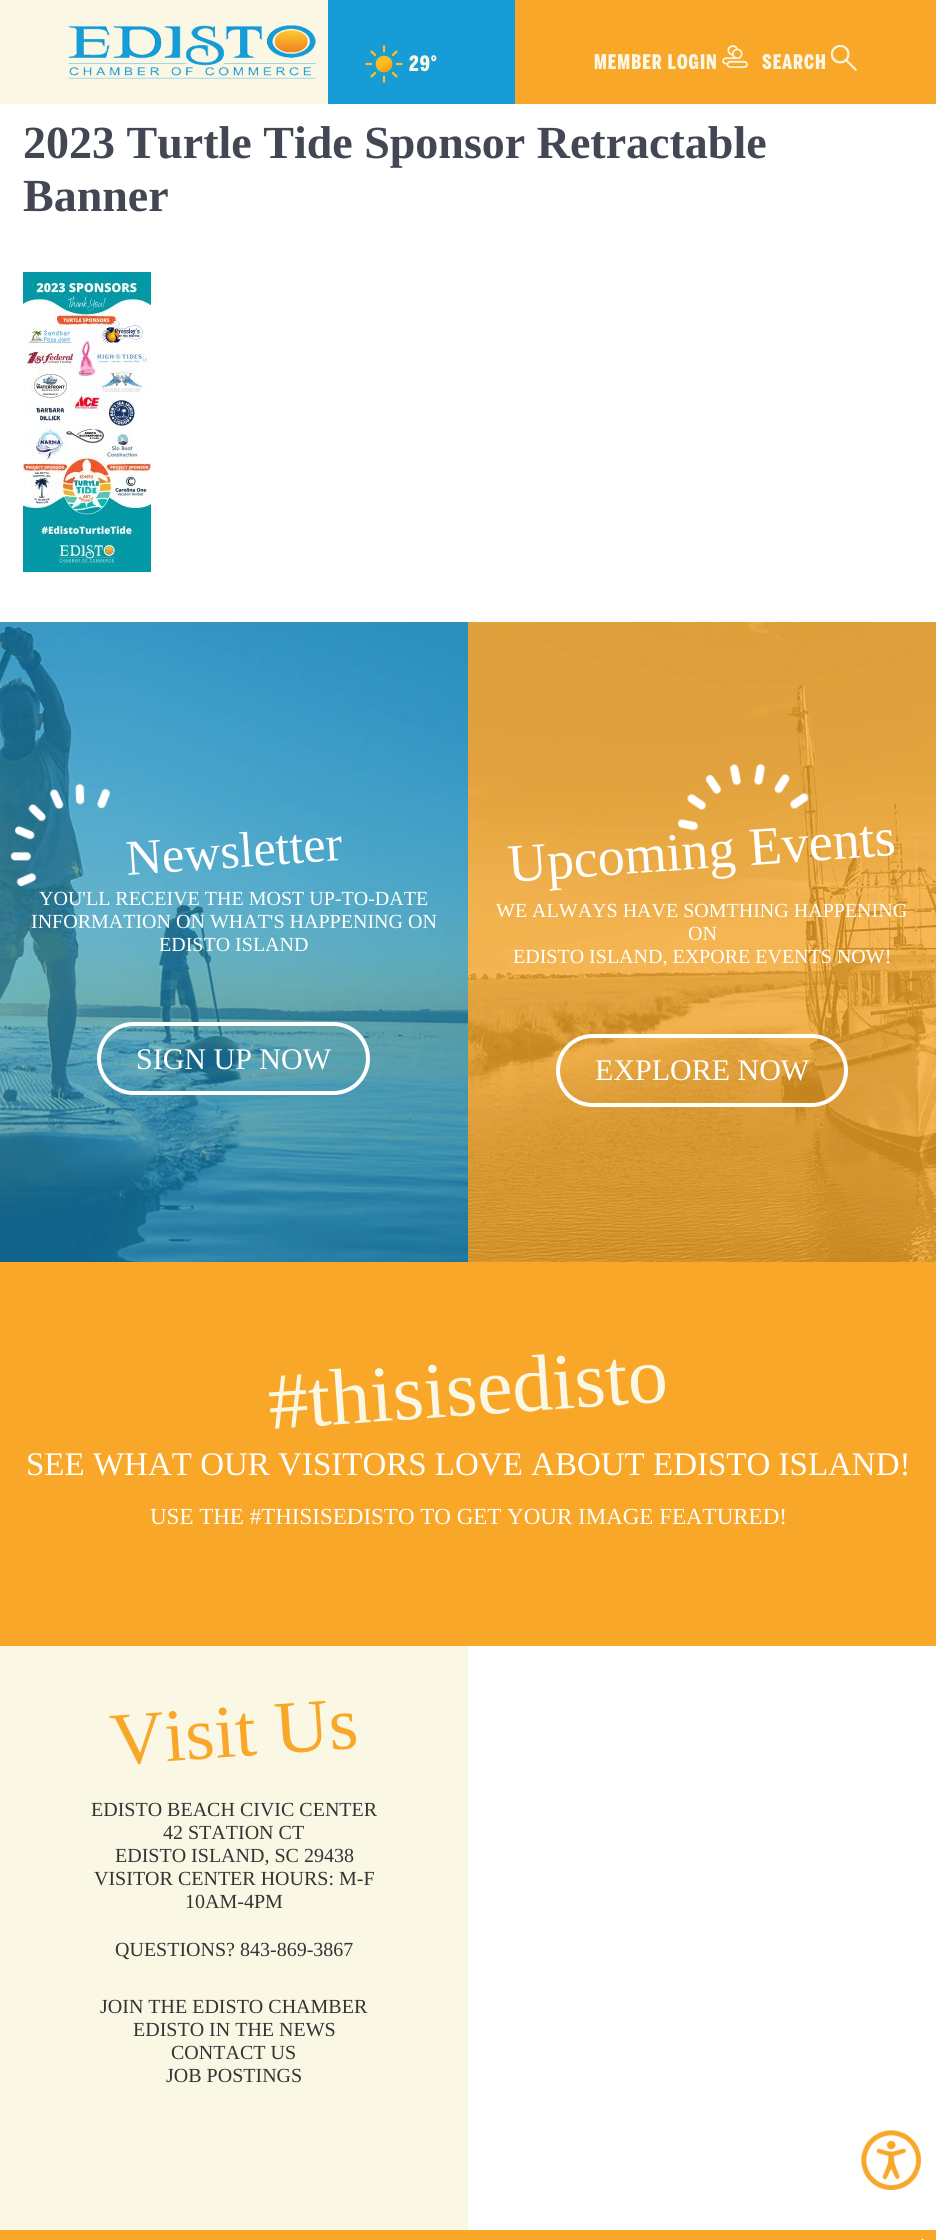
import math
import cairocffi as cairo

surface = cairo.ImageSurface(cairo.FORMAT_RGB24, 936, 2240)
ctx = cairo.Context(surface)
options = cairo.FontOptions()
options.set_hint_metrics(cairo.HINT_METRICS_OFF)
options.set_hint_style(cairo.HINT_STYLE_NONE)
ctx.set_font_options(options)
ctx.set_miter_limit(4)


def rgb(r, g, b):
    ctx.set_source_rgb(r / 255, g / 255, b / 255)


def face(family, size, italic, bold):
    ctx.select_font_face(family, cairo.FONT_SLANT_ITALIC if italic else cairo.FONT_SLANT_NORMAL, cairo.FONT_WEIGHT_BOLD if bold else cairo.FONT_WEIGHT_NORMAL)
    ctx.set_font_size(size)


def label(x, y, s):
    ctx.move_to(x, y)
    ctx.show_text(s)


def tracked(x, y, s, letter, word):
    ctx.move_to(x, y)
    for ch in s:
        ctx.show_text(ch)
        ctx.rel_move_to(letter + word * (ch == ' '), 0)


def rect(x, y, w, h):
    ctx.rectangle(x, y, w, h)
    ctx.fill()


def rrect(x, y, w, h, r):
    ctx.new_sub_path()
    for i, (u, v) in enumerate([(x + w - r, y + h - r), (x + r, y + h - r), (x + r, y + r), (x + w - r, y + r)]):
        ctx.arc(u, v, r, i * math.pi / 2, (i + 1) * math.pi / 2)
    ctx.close_path()


def image(path, x, y, w, h):
    ctx.save()
    ctx.set_source_surface(cairo.ImageSurface.create_from_png(path), x, y)
    ctx.rectangle(x, y, w, h)
    ctx.fill()
    ctx.restore()


rgb(255, 255, 255)
ctx.paint()
rgb(251, 247, 229)
rect(0, 0, 328, 104)
image('image0.png', 68, 25, 248, 54)
rgb(22, 156, 214)
rect(328, 0, 187, 104)
image('image1.png', 365, 45, 38, 38)
face('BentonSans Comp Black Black', 21, 0, 0)
rgb(251, 247, 229)
tracked(409, 71, '29°', 1, 0)
rgb(248, 167, 40)
rect(515, 0, 421, 104)
image('image2.png', 722, 45, 26, 23)
face('BentonSans Comp Black Black', 20, 0, 0)
rgb(251, 247, 229)
tracked(594, 69, 'MEMBER LOGIN', 1, 0)
image('image3.png', 831, 45, 26, 26)
tracked(762, 69, 'SEARCH', 1, 0)
face('Liberation Serif', 46, 0, 1)
rgb(66, 71, 83)
label(23, 158, '2023 Turtle Tide Sponsor Retractable')
label(23, 211, 'Banner')
image('image4.png', 23, 272, 128, 300)
image('image5.png', 0, 622, 468, 640)
image('image6.png', 10, 783, 100, 104)
face('Liberation Serif', 50, 0, 0)
rgb(255, 255, 255)
ctx.save()
ctx.translate(127, 875)
ctx.rotate(-4 * math.pi / 180)
label(0, 0, 'Newsletter')
ctx.restore()
face('Liberation Serif', 20, 0, 0)
label(39, 905, 'YOU\'LL RECEIVE THE MOST UP-TO-DATE')
label(31, 928, 'INFORMATION ON WHAT\'S HAPPENING ON')
label(159, 951, 'EDISTO ISLAND')
rrect(99, 1024, 269, 69, 34.5)
ctx.set_line_width(4)
ctx.stroke()
face('Liberation Serif', 30, 0, 0)
label(136, 1069, 'SIGN UP NOW')
image('image7.png', 468, 622, 468, 640)
face('Liberation Serif', 54, 0, 0)
ctx.save()
ctx.translate(509, 882)
ctx.rotate(-4 * math.pi / 180)
label(0, 0, 'Upcoming Events')
ctx.restore()
image('image8.png', 677, 763, 132, 68)
face('Liberation Serif', 20, 0, 0)
label(496, 917, 'WE ALWAYS HAVE SOMTHING HAPPENING')
label(688, 940, 'ON')
label(513, 963, 'EDISTO ISLAND, EXPORE EVENTS NOW!')
rrect(558, 1036, 288, 69, 34.5)
ctx.stroke()
face('Liberation Serif', 30, 0, 0)
label(595, 1080, 'EXPLORE NOW')
rgb(248, 167, 40)
rect(0, 1262, 936, 384)
face('Liberation Serif', 80, 0, 0)
rgb(251, 247, 229)
ctx.save()
ctx.translate(270, 1429)
ctx.rotate(-4 * math.pi / 180)
label(0, 0, '#thisisedisto')
ctx.restore()
face('Liberation Serif', 33, 0, 0)
rgb(255, 255, 255)
label(26, 1475, 'SEE WHAT OUR VISITORS LOVE ABOUT EDISTO ISLAND!')
face('Liberation Serif', 23, 0, 0)
label(150, 1524, 'USE THE #THISISEDISTO TO GET YOUR IMAGE FEATURED!')
rgb(251, 247, 229)
rect(0, 1646, 468, 584)
face('Liberation Serif', 75, 0, 0)
rgb(248, 167, 40)
ctx.save()
ctx.translate(112, 1765)
ctx.rotate(-4 * math.pi / 180)
label(0, 0, 'Visit Us')
ctx.restore()
face('Liberation Serif', 20, 0, 0)
rgb(52, 52, 52)
label(91, 1816, 'EDISTO BEACH CIVIC CENTER')
label(163, 1839, '42 STATION CT')
label(115, 1862, 'EDISTO ISLAND, SC 29438')
label(94, 1885, 'VISITOR CENTER HOURS: M-F')
label(185, 1908, '10AM-4PM')
label(115, 1956, 'QUESTIONS? 843-869-3867')
label(100, 2013, 'JOIN THE EDISTO CHAMBER')
label(133, 2036, 'EDISTO IN THE NEWS')
label(171, 2059, 'CONTACT US')
label(166, 2082, 'JOB POSTINGS')
rgb(248, 167, 40)
rect(0, 2230, 936, 10)
image('image9.png', 921, 2238, 3, 2)
image('image10.png', 861, 2130, 60, 60)
surface.write_to_png('render.png')
